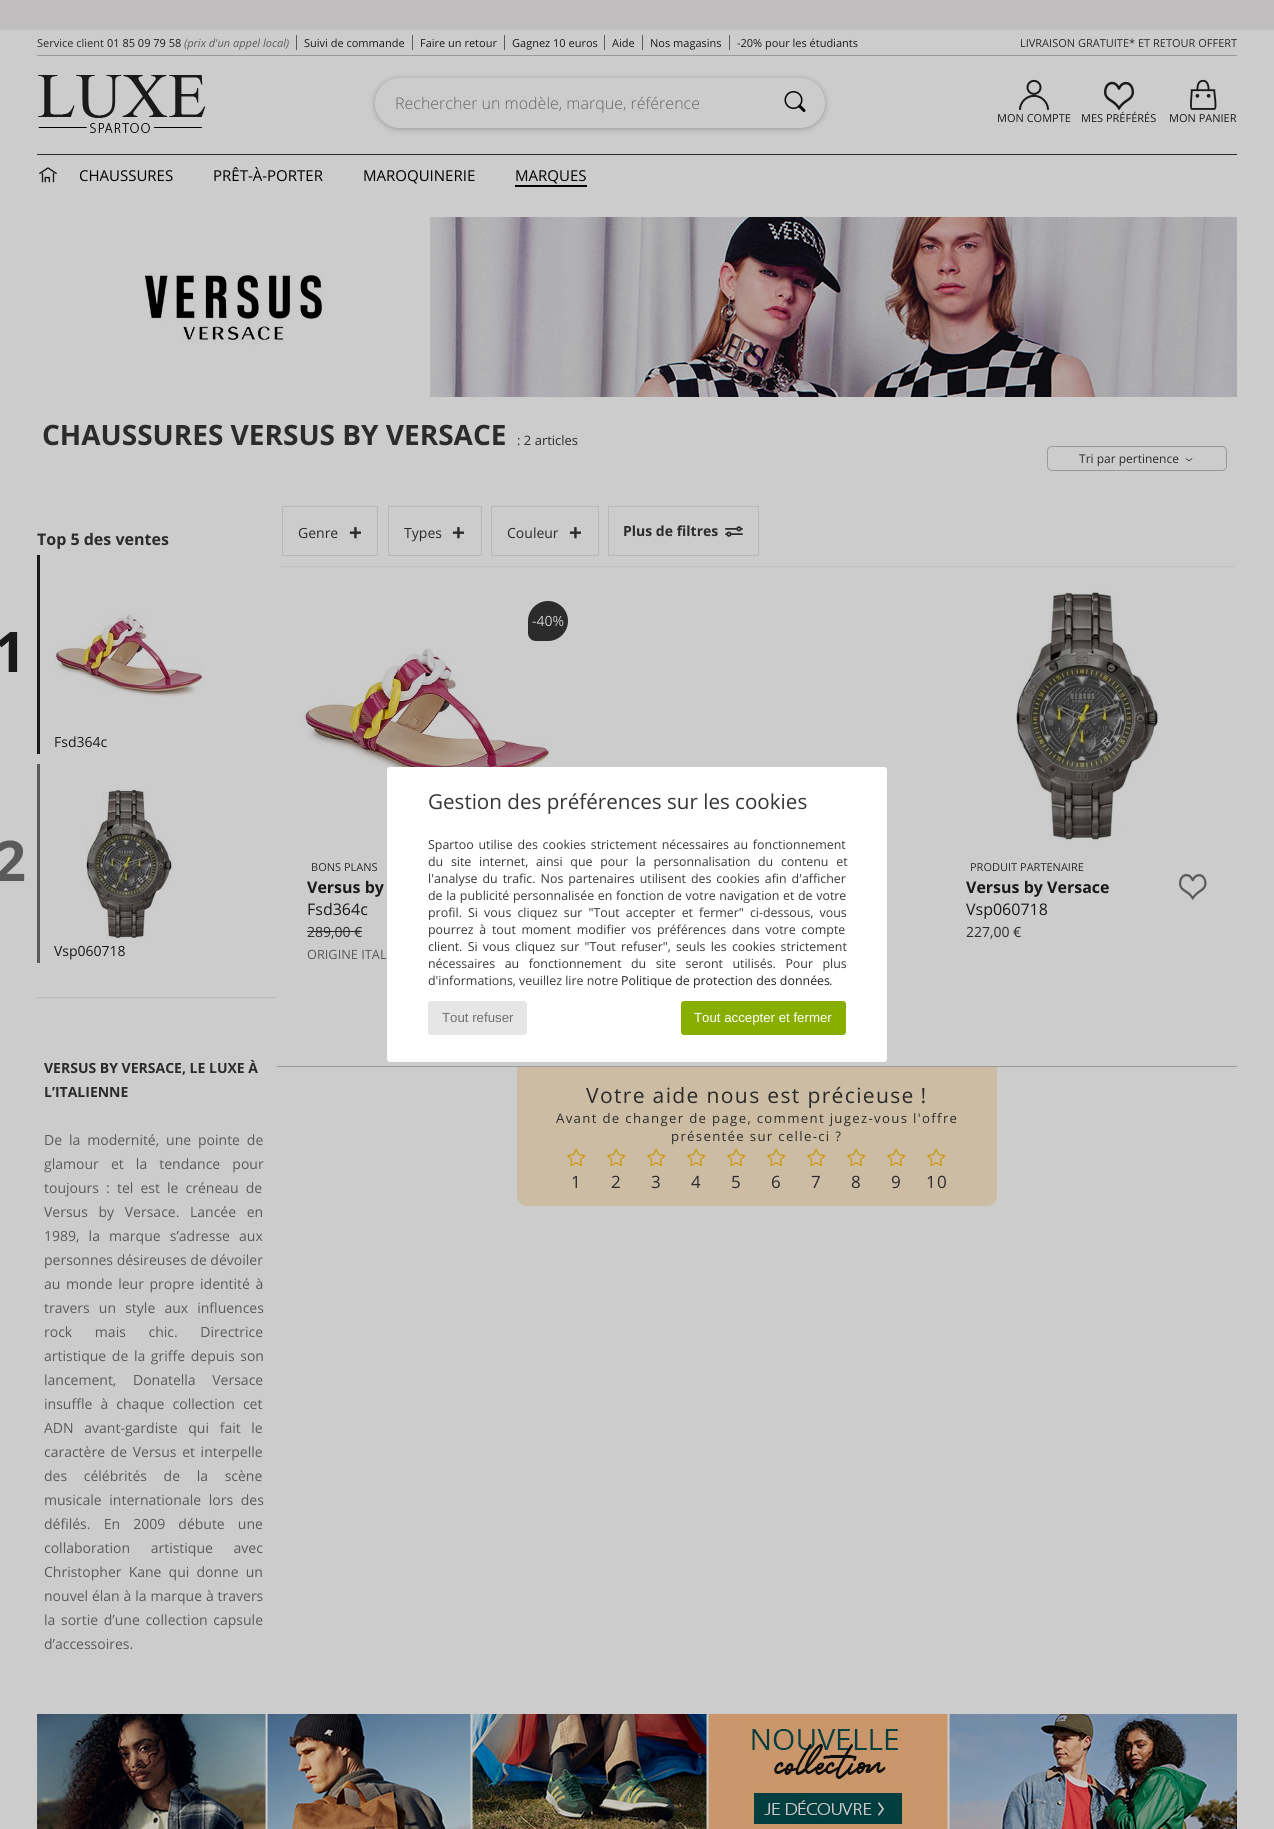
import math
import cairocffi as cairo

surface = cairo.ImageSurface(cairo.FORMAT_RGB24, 1274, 1829)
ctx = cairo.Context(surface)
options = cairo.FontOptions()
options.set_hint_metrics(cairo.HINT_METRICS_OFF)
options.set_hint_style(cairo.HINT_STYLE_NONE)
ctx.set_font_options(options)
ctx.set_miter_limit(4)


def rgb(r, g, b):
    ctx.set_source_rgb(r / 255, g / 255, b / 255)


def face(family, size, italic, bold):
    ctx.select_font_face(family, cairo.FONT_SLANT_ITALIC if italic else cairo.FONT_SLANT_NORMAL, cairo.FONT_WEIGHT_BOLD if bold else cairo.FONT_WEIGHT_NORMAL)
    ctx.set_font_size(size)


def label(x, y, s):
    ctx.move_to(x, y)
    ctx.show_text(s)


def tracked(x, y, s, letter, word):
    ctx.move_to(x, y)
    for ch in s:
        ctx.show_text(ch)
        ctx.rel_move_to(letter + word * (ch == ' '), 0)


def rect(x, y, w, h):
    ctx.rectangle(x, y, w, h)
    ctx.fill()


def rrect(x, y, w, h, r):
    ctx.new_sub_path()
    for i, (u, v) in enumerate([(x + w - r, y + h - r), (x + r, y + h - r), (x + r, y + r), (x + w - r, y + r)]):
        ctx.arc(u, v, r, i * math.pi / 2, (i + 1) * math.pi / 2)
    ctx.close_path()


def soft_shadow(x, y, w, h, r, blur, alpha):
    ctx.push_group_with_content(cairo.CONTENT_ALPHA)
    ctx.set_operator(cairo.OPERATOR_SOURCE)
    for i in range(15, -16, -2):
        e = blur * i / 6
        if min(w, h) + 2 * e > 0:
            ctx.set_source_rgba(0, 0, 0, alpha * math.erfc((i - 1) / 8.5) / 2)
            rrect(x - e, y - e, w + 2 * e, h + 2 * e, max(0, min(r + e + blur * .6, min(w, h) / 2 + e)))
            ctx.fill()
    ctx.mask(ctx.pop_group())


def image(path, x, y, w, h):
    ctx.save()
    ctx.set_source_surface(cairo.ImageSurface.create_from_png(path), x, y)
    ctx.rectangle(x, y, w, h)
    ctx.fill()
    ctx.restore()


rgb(204, 204, 204)
ctx.paint()
rgb(192, 190, 190)
rect(0, 0, 1274, 30)
rgb(154, 154, 154)
rect(37, 55, 1200, 1)
rgb(90, 90, 90)
rect(296, 35, 1, 15)
face('Open Sans', 11, 0, 0)
rgb(43, 43, 43)
label(37, 47, 'Service client')
rgb(26, 26, 26)
label(107, 47, '01 85 09 79 58')
face('Open Sans', 11, 1, 0)
rgb(90, 90, 90)
label(184, 47, '(prix d\'un appel local)')
rect(412, 35, 1, 15)
face('Open Sans', 11, 0, 0)
rgb(26, 26, 26)
label(304, 47, 'Suivi de commande')
rgb(90, 90, 90)
rect(504, 35, 1, 15)
rgb(26, 26, 26)
label(420, 47, 'Faire un retour')
rgb(90, 90, 90)
rect(604, 35, 1, 15)
rgb(26, 26, 26)
label(512, 47, 'Gagnez 10 euros')
rgb(90, 90, 90)
rect(642, 35, 1, 15)
rgb(26, 26, 26)
label(612, 47, 'Aide')
rgb(90, 90, 90)
rect(729, 35, 1, 15)
rgb(26, 26, 26)
label(650, 47, 'Nos magasins')
label(737, 47, '-20% pour les étudiants')
rgb(43, 43, 43)
label(1020, 47, 'LIVRAISON GRATUITE* ET RETOUR OFFERT')
image('image0.png', 38, 75, 168, 58)
rgb(26, 26, 29)
soft_shadow(375, 79, 450, 50, 25, 3, 0.28)
rgb(204, 204, 204)
rrect(375, 78, 450, 50, 25)
ctx.fill()
face('Open Sans Light', 16, 0, 0)
rgb(102, 102, 102)
label(395, 109, 'Rechercher un modèle, marque, référence')
image('image1.png', 784, 91, 22, 21)
image('image2.png', 1019, 79, 30, 31)
face('Open Sans', 11, 0, 0)
rgb(26, 26, 26)
label(997, 122, 'MON COMPTE')
image('image3.png', 1104, 81, 30, 29)
label(1081, 122, 'MES PRÉFÉRÉS')
image('image4.png', 1190, 79, 27, 31)
label(1169, 122, 'MON PANIER')
rgb(43, 43, 43)
rect(37, 154, 1200, 1)
image('image5.png', 39, 167, 18, 16)
face('Open Sans', 15, 0, 0)
rgb(0, 0, 0)
label(79, 181, 'CHAUSSURES')
label(213, 181, 'PRÊT-À-PORTER')
label(363, 181, 'MAROQUINERIE')
rect(515, 185, 72, 2)
label(515, 181, 'MARQUES')
image('image6.png', 143, 217, 1094, 180)
face('Open Sans', 28, 0, 1)
rgb(43, 43, 43)
label(42, 445, 'CHAUSSURES VERSUS BY VERSACE')
face('Open Sans', 13, 0, 0)
label(517, 445, ': 2 articles')
rrect(1047.5, 446.5, 179, 24, 4.5)
rgb(154, 154, 154)
ctx.set_line_width(1)
ctx.stroke()
face('Open Sans', 12, 0, 0)
rgb(43, 43, 43)
label(1079, 463, 'Tri par pertinence')
image('image7.png', 1185, 458, 8, 4)
face('Open Sans', 16, 0, 1)
label(37, 545, 'Top 5 des ventes')
rgb(26, 26, 26)
rect(37, 555, 3, 199)
face('Open Sans', 56, 0, 1)
label(-6, 672, '1')
image('image8.png', 54, 612, 150, 85)
face('Open Sans', 14, 0, 0)
label(54, 747, 'Fsd364c')
rgb(90, 90, 90)
rect(37, 764, 3, 199)
face('Open Sans', 56, 0, 1)
label(-6, 881, '2')
image('image9.png', 86, 789, 88, 150)
face('Open Sans', 14, 0, 0)
rgb(26, 26, 26)
label(54, 956, 'Vsp060718')
rgb(184, 184, 184)
rect(37, 997, 240, 1)
face('Open Sans', 14, 0, 1)
rgb(43, 43, 43)
label(44, 1073, 'VERSUS BY VERSACE, LE LUXE À')
label(44, 1097, 'L’ITALIENNE')
face('Open Sans', 14, 0, 0)
rgb(90, 90, 90)
tracked(44, 1145, 'De la modernité, une pointe de', 0, 3.25)
tracked(44, 1169, 'glamour et la tendance pour', 0, 8.5)
tracked(44, 1193, 'toujours : tel est le créneau de', 0, 3.5)
tracked(44, 1217, 'Versus by Versace. Lancée en', 0, 7)
tracked(44, 1241, '1989, la marque s’adresse aux', 0, 5.5)
label(44, 1265, 'personnes désireuses de dévoiler')
tracked(44, 1289, 'au monde leur propre identité à', 0, 2)
tracked(44, 1313, 'travers un style aux influences', 0, 5.5)
tracked(44, 1337, 'rock mais chic. Directrice', 0, 19)
tracked(44, 1361, 'artistique de la griffe depuis son', 0, 2)
tracked(44, 1385, 'lancement, Donatella Versace', 0, 13)
tracked(44, 1409, 'insuffle à chaque collection cet', 0, 4.5)
tracked(44, 1433, 'ADN avant-gardiste qui fait le', 0, 7)
tracked(44, 1457, 'caractère de Versus et interpelle', 0, 2)
tracked(44, 1481, 'des célébrités de la scène', 0, 13)
tracked(44, 1505, 'musicale internationale lors des', 0, 4)
tracked(44, 1529, 'défilés. En 2009 débute une', 0, 9.5)
tracked(44, 1553, 'collaboration artistique avec', 0, 17)
tracked(44, 1577, 'Christopher Kane qui donne un', 0, 3.5)
tracked(44, 1601, 'nouvel élan à la marque à travers', 0, 0.25)
tracked(44, 1625, 'la sortie d’une collection capsule', 0, 2)
label(44, 1649, 'd’accessoires.')
ctx.save()
ctx.rectangle(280, 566, 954, 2)
ctx.clip()
rgb(0, 0, 0)
soft_shadow(281, 508, 952, 57, 0, 2, 0.25)
ctx.restore()
ctx.rectangle(282.5, 506.5, 95, 49)
rgb(184, 184, 184)
ctx.stroke()
rgb(43, 43, 43)
label(298, 538, 'Genre')
face('Liberation Sans', 22, 0, 1)
label(349, 540, '+')
ctx.rectangle(388.5, 506.5, 93, 49)
rgb(184, 184, 184)
ctx.stroke()
face('Open Sans', 14, 0, 0)
rgb(43, 43, 43)
label(404, 538, 'Types')
face('Liberation Sans', 22, 0, 1)
label(452, 540, '+')
ctx.rectangle(491.5, 506.5, 107, 49)
rgb(184, 184, 184)
ctx.stroke()
face('Open Sans', 14, 0, 0)
rgb(43, 43, 43)
label(507, 538, 'Couleur')
face('Liberation Sans', 22, 0, 1)
label(569, 540, '+')
ctx.rectangle(608.5, 506.5, 150, 49)
rgb(184, 184, 184)
ctx.stroke()
face('Open Sans', 14, 0, 1)
rgb(43, 43, 43)
label(623, 536, 'Plus de filtres')
image('image10.png', 725, 526, 18, 11)
ctx.new_path()
ctx.move_to(548, 601)
ctx.curve_to(559, 601, 568, 610, 568, 621)
ctx.curve_to(568, 632, 559, 641, 548, 641)
ctx.line_to(536, 641)
ctx.curve_to(531.5, 641, 528, 637.5, 528, 633)
ctx.line_to(528, 621)
ctx.curve_to(528, 610, 537, 601, 548, 601)
ctx.close_path()
ctx.fill()
face('Open Sans', 14, 0, 0)
rgb(204, 204, 204)
label(532, 626, '-40%')
image('image11.png', 302, 648, 250, 138)
face('Open Sans', 11, 0, 0)
rgb(43, 43, 43)
label(311, 871, 'BONS PLANS')
face('Open Sans', 16, 0, 1)
rgb(26, 26, 26)
label(307, 893, 'Versus by')
face('Open Sans', 16, 0, 0)
label(307, 915, 'Fsd364c')
face('Open Sans', 14, 0, 0)
rgb(43, 43, 43)
label(307, 937, '289,00 €')
rect(307, 931, 55, 1)
face('Open Sans', 12.75, 0, 0)
rgb(90, 90, 90)
label(307, 959, 'ORIGINE ITAL')
image('image12.png', 1016, 591, 144, 250)
face('Open Sans', 11, 0, 0)
rgb(43, 43, 43)
label(970, 871, 'PRODUIT PARTENAIRE')
face('Open Sans', 16, 0, 1)
rgb(26, 26, 26)
label(966, 893, 'Versus by Versace')
face('Open Sans', 16, 0, 0)
label(966, 915, 'Vsp060718')
face('Open Sans', 14, 0, 0)
rgb(43, 43, 43)
label(966, 937, '227,00 €')
image('image13.png', 1179, 873, 28, 27)
rgb(154, 154, 154)
rect(277, 1066, 960, 1)
rgb(204, 188, 163)
ctx.new_path()
ctx.move_to(517, 1067)
ctx.line_to(997, 1067)
ctx.line_to(997, 1196)
ctx.curve_to(997, 1201.5, 992.5, 1206, 987, 1206)
ctx.line_to(527, 1206)
ctx.curve_to(521.5, 1206, 517, 1201.5, 517, 1196)
ctx.close_path()
ctx.fill()
face('Open Sans', 21.1, 0, 0)
rgb(43, 43, 43)
tracked(586, 1103, 'Votre aide nous est précieuse !', 1.32, 0)
face('Open Sans', 13.2, 0, 0)
tracked(556, 1123, 'Avant de changer de page, comment jugez-vous l\'offre', 1.32, 0)
tracked(671, 1141, 'présentée sur celle-ci ?', 1.32, 0)
image('image14.png', 567, 1148, 19, 19)
image('image14.png', 607, 1148, 19, 19)
image('image14.png', 647, 1148, 19, 19)
image('image14.png', 687, 1148, 19, 19)
image('image14.png', 727, 1148, 19, 19)
image('image14.png', 767, 1148, 19, 19)
image('image14.png', 807, 1148, 19, 19)
image('image14.png', 847, 1148, 19, 19)
image('image14.png', 887, 1148, 19, 19)
image('image14.png', 927, 1148, 19, 19)
face('Open Sans', 17, 0, 0)
tracked(571, 1188, '1', 1.32, 0)
tracked(611, 1188, '2', 1.32, 0)
tracked(651, 1188, '3', 1.32, 0)
tracked(691, 1188, '4', 1.32, 0)
tracked(731, 1188, '5', 1.32, 0)
tracked(771, 1188, '6', 1.32, 0)
tracked(811, 1188, '7', 1.32, 0)
tracked(851, 1188, '8', 1.32, 0)
tracked(891, 1188, '9', 1.32, 0)
tracked(926, 1188, '10', 1.32, 0)
image('image15.png', 37, 1714, 1200, 115)
rgb(255, 255, 255)
rrect(387, 767, 500, 295, 3)
ctx.fill()
face('Open Sans', 20.6, 0, 0)
rgb(54, 54, 54)
label(428, 809, 'Gestion des préférences sur les cookies')
face('Open Sans', 12.4, 0, 0)
tracked(428, 849, 'Spartoo utilise des cookies strictement nécessaires au fonctionnement', 0, 1.5)
tracked(428, 866, 'du site internet, ainsi que pour la personnalisation du contenu et', 0, 4.5)
tracked(428, 883, 'l\'analyse du trafic. Nos partenaires utilisent des cookies afin d\'afficher', 0, 1.75)
tracked(428, 900, 'de la publicité personnalisée en fonction de votre navigation et de votre', 0, 0.4)
tracked(428, 917, 'profil. Si vous cliquez sur "Tout accepter et fermer" ci-dessous, vous', 0, 2.9)
tracked(428, 934, 'pourrez à tout moment modifier vos préférences dans votre compte', 0, 2.5)
tracked(428, 951, 'client. Si vous cliquez sur "Tout refuser", seuls les cookies strictement', 0, 2)
tracked(428, 968, 'nécessaires au fonctionnement du site seront utilisés. Pour plus', 0, 6.25)
label(428, 985, 'd\'informations, veuillez lire notre')
rgb(33, 33, 33)
label(621, 985, 'Politique de protection des données')
rgb(54, 54, 54)
label(829, 985, '.')
rgb(230, 230, 230)
rrect(428, 1001, 99, 34, 3)
ctx.fill()
face('Liberation Sans', 13.25, 0, 0)
rgb(112, 112, 112)
label(442, 1022, 'Tout refuser')
rgb(136, 175, 0)
rrect(681, 1001, 165, 34, 3)
ctx.fill()
rgb(255, 255, 255)
label(694, 1022, 'Tout accepter et fermer')
surface.write_to_png('render.png')
